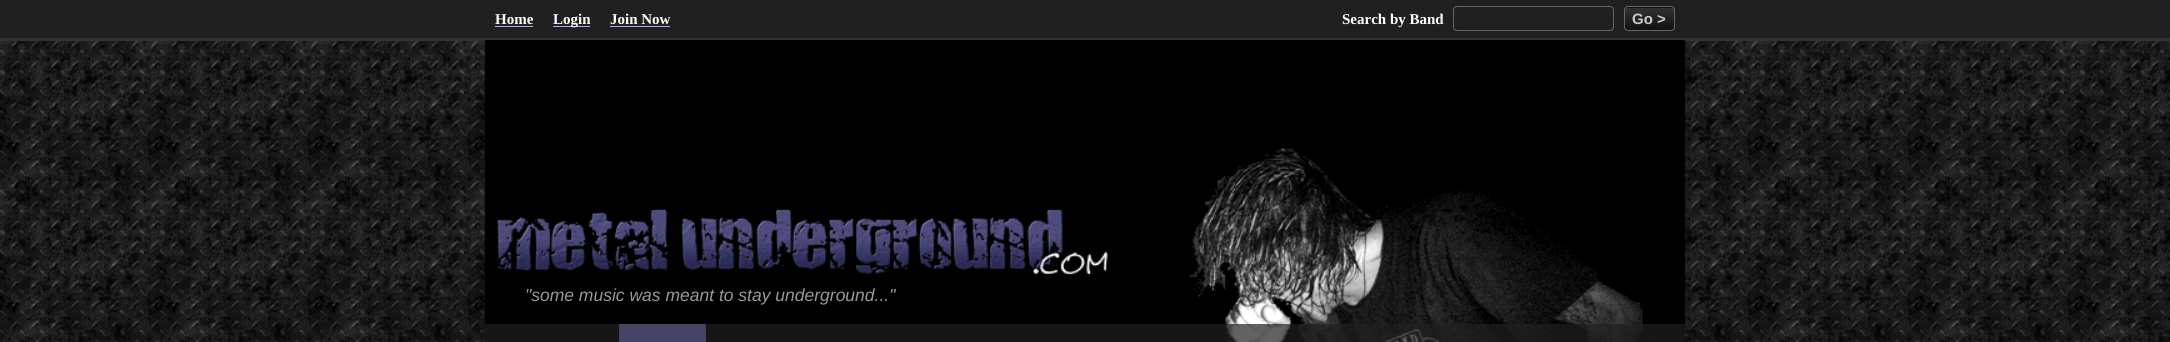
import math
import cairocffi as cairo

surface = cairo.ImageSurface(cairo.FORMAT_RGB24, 2170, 342)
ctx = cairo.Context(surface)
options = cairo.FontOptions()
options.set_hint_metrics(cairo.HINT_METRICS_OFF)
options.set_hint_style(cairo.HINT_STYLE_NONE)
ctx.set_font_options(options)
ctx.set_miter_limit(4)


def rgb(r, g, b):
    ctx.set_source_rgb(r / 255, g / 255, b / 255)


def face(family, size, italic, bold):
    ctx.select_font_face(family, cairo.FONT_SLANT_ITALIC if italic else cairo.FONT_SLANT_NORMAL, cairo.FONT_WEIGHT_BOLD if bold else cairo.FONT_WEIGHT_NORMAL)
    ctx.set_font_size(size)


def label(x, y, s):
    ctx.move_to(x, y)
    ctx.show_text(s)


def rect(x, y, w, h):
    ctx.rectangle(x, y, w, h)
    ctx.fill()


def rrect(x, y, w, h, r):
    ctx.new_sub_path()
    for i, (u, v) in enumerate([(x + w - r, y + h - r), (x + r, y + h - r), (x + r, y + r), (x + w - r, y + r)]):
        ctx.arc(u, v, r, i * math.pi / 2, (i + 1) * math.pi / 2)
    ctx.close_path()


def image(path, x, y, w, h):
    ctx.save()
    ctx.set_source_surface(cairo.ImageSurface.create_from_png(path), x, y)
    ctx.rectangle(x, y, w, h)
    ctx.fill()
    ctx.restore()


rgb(255, 255, 255)
ctx.paint()
image('image0.png', 0, 41, 2170, 301)
rgb(33, 32, 33)
rect(0, 0, 2170, 38)
rgb(51, 51, 51)
rect(0, 38, 2170, 3)
face('Liberation Serif', 15, 0, 1)
rgb(255, 255, 255)
label(495, 24, 'Home')
rgb(170, 170, 255)
rect(495, 26, 38, 1)
rect(553, 26, 37, 1)
rgb(255, 255, 255)
label(553, 24, 'Login')
label(610, 24, 'Join Now')
rgb(170, 170, 255)
rect(610, 26, 60, 1)
rgb(255, 255, 255)
label(1342, 24, 'Search by Band')
rrect(1453.5, 6.5, 160, 24, 3.5)
rgb(102, 102, 102)
ctx.set_line_width(1)
ctx.stroke()
ctx.save()
rrect(1624, 6, 51, 25, 4)
ctx.clip()
gradient = cairo.LinearGradient(1649, -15, 1649, 7.5)
gradient.add_color_stop_rgba(0, 0.2, 0.2, 0.2, 1)
gradient.add_color_stop_rgba(1, 0.067, 0.067, 0.067, 1)
ctx.set_source(gradient)
rect(1624, 6, 51, 2)
gradient = cairo.LinearGradient(1649, 7.5, 1649, 30)
gradient.add_color_stop_rgba(0, 0.2, 0.2, 0.2, 1)
gradient.add_color_stop_rgba(1, 0.067, 0.067, 0.067, 1)
ctx.set_source(gradient)
rect(1624, 8, 51, 22)
ctx.restore()
rrect(1624.5, 6.5, 50, 24, 3.5)
ctx.stroke()
face('Liberation Sans', 15, 0, 1)
rgb(204, 204, 204)
label(1632, 24, 'Go >')
rgb(0, 0, 0)
rect(485, 40, 1200, 302)
image('image1.png', 1154, 147, 496, 195)
image('image2.png', 497, 208, 612, 68)
face('Liberation Sans', 17.5, 1, 0)
rgb(153, 153, 153)
label(525, 301, '"some music was meant to stay underground..."')
ctx.set_source_rgba(0.129, 0.125, 0.129, 0.7)
rect(485, 324, 1200, 18)
rgb(68, 68, 102)
rect(619, 324, 87, 18)
surface.write_to_png('render.png')
